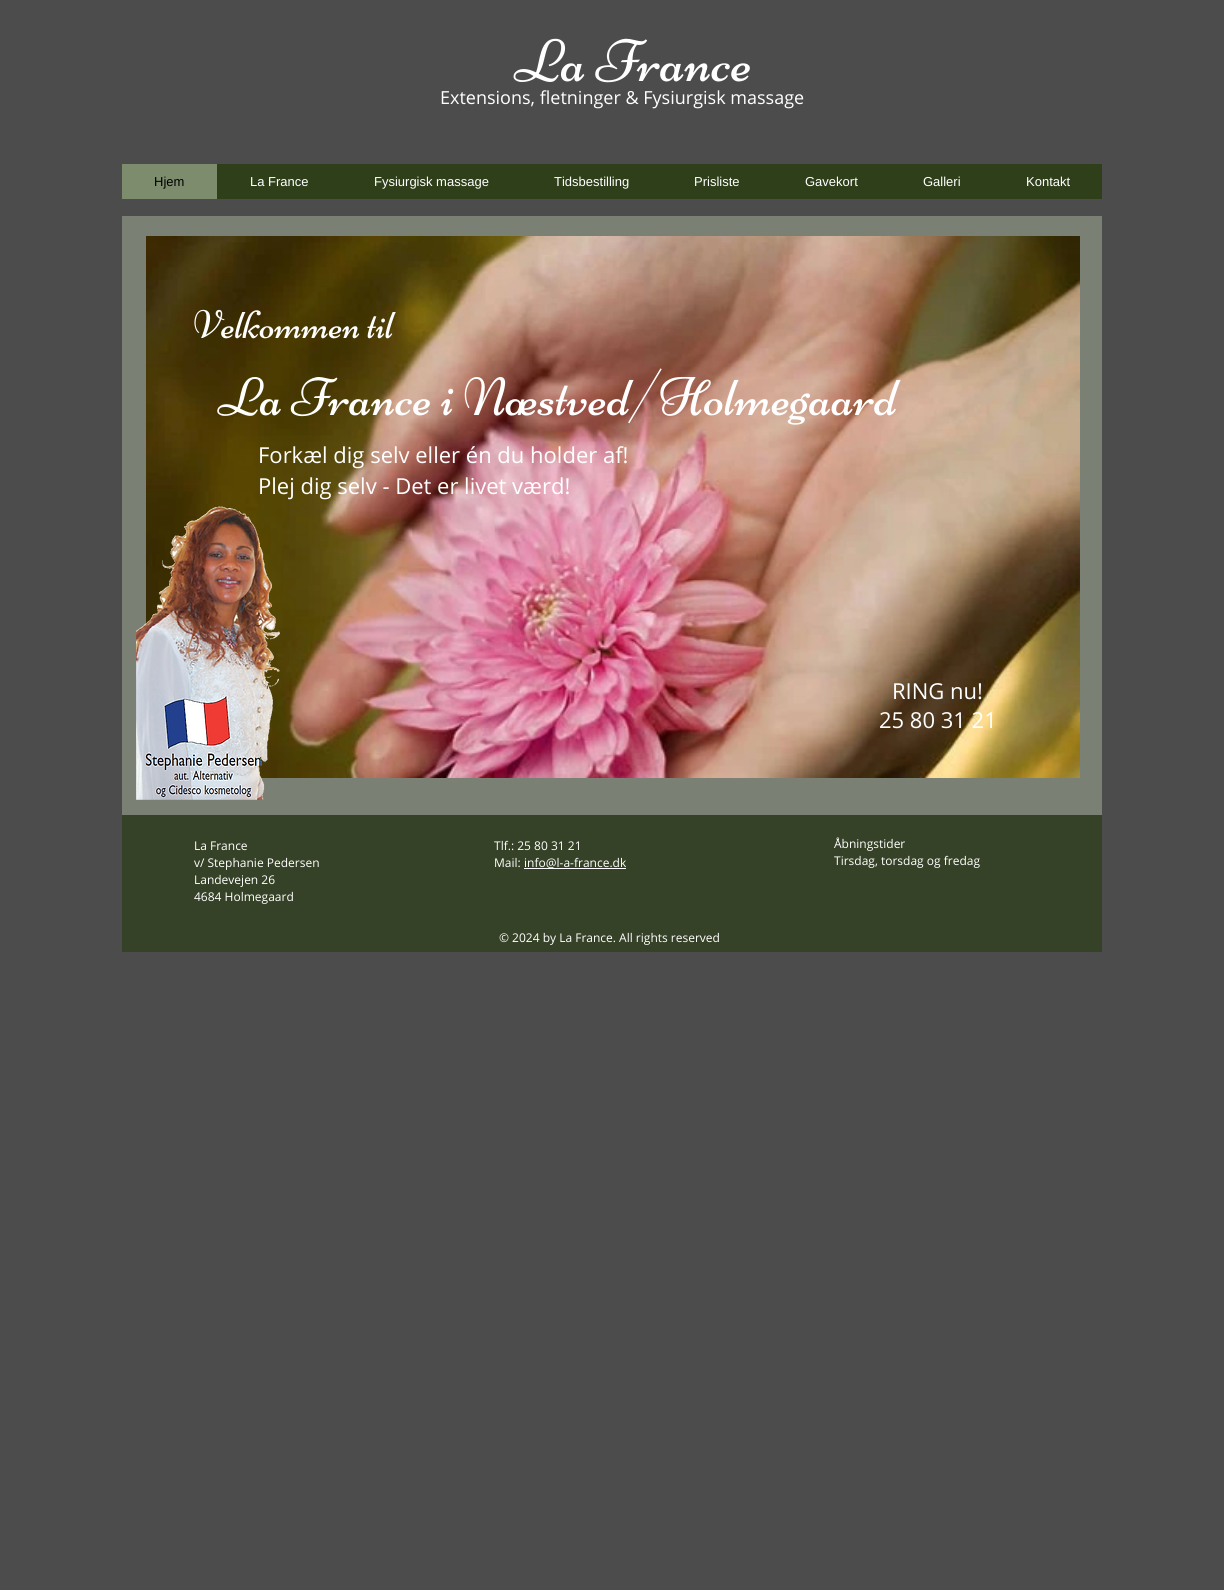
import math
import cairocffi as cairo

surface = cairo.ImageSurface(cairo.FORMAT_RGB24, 1224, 1590)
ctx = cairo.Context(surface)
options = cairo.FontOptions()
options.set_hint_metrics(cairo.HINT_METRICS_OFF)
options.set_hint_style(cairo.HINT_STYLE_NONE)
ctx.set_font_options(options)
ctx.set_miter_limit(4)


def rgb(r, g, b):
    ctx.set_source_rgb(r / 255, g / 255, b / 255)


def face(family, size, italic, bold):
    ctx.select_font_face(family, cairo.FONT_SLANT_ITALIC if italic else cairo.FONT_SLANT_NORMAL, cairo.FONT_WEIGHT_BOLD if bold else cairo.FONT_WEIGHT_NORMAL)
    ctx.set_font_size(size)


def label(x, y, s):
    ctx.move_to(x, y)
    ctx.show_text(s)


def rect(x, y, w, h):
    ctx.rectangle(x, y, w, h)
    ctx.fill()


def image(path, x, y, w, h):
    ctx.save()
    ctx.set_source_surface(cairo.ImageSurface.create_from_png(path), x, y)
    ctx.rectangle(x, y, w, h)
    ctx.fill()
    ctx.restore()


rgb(76, 76, 76)
ctx.paint()
image('image0.png', 513, 38, 237, 45)
face('Open Sans', 18, 0, 0)
rgb(255, 255, 255)
label(440, 104, 'Extensions, fletninger & Fysiurgisk massage')
rgb(47, 63, 26)
rect(217, 164, 885, 35)
rgb(125, 140, 108)
rect(122, 164, 95, 35)
face('Liberation Sans', 13, 0, 0)
rgb(0, 0, 0)
label(154, 186, 'Hjem')
rgb(255, 255, 255)
label(250, 186, 'La France')
label(374, 186, 'Fysiurgisk massage')
label(554, 186, 'Tidsbestilling')
label(694, 186, 'Prisliste')
label(805, 186, 'Gavekort')
label(923, 186, 'Galleri')
label(1026, 186, 'Kontakt')
rgb(123, 128, 116)
rect(122, 216, 980, 599)
image('image1.png', 146, 236, 934, 542)
image('image2.png', 194, 309, 202, 30)
image('image3.png', 217, 368, 684, 57)
face('Open Sans', 22, 0, 0)
rgb(255, 255, 255)
label(258, 463, 'Forkæl dig selv eller én du holder af!')
label(258, 494, 'Plej dig selv - Det er livet værd!')
image('image4.png', 136, 506, 144, 294)
label(892, 699, 'RING nu!')
label(879, 728, '25 80 31 21')
rgb(54, 66, 39)
rect(122, 815, 980, 137)
face('Open Sans', 12, 0, 0)
rgb(255, 255, 255)
label(194, 850, 'La France')
label(194, 867, 'v/ Stephanie Pedersen')
label(194, 884, 'Landevejen 26')
label(194, 901, '4684 Holmegaard')
label(494, 850, 'Tlf.: 25 80 31 21')
label(494, 867, 'Mail:')
rect(524, 868, 102, 1)
label(524, 867, 'info@l-a-france.dk')
label(834, 848, 'Åbningstider')
label(834, 865, 'Tirsdag, torsdag og fredag')
label(499, 942, '© 2024 by La France. All rights reserved')
surface.write_to_png('render.png')
